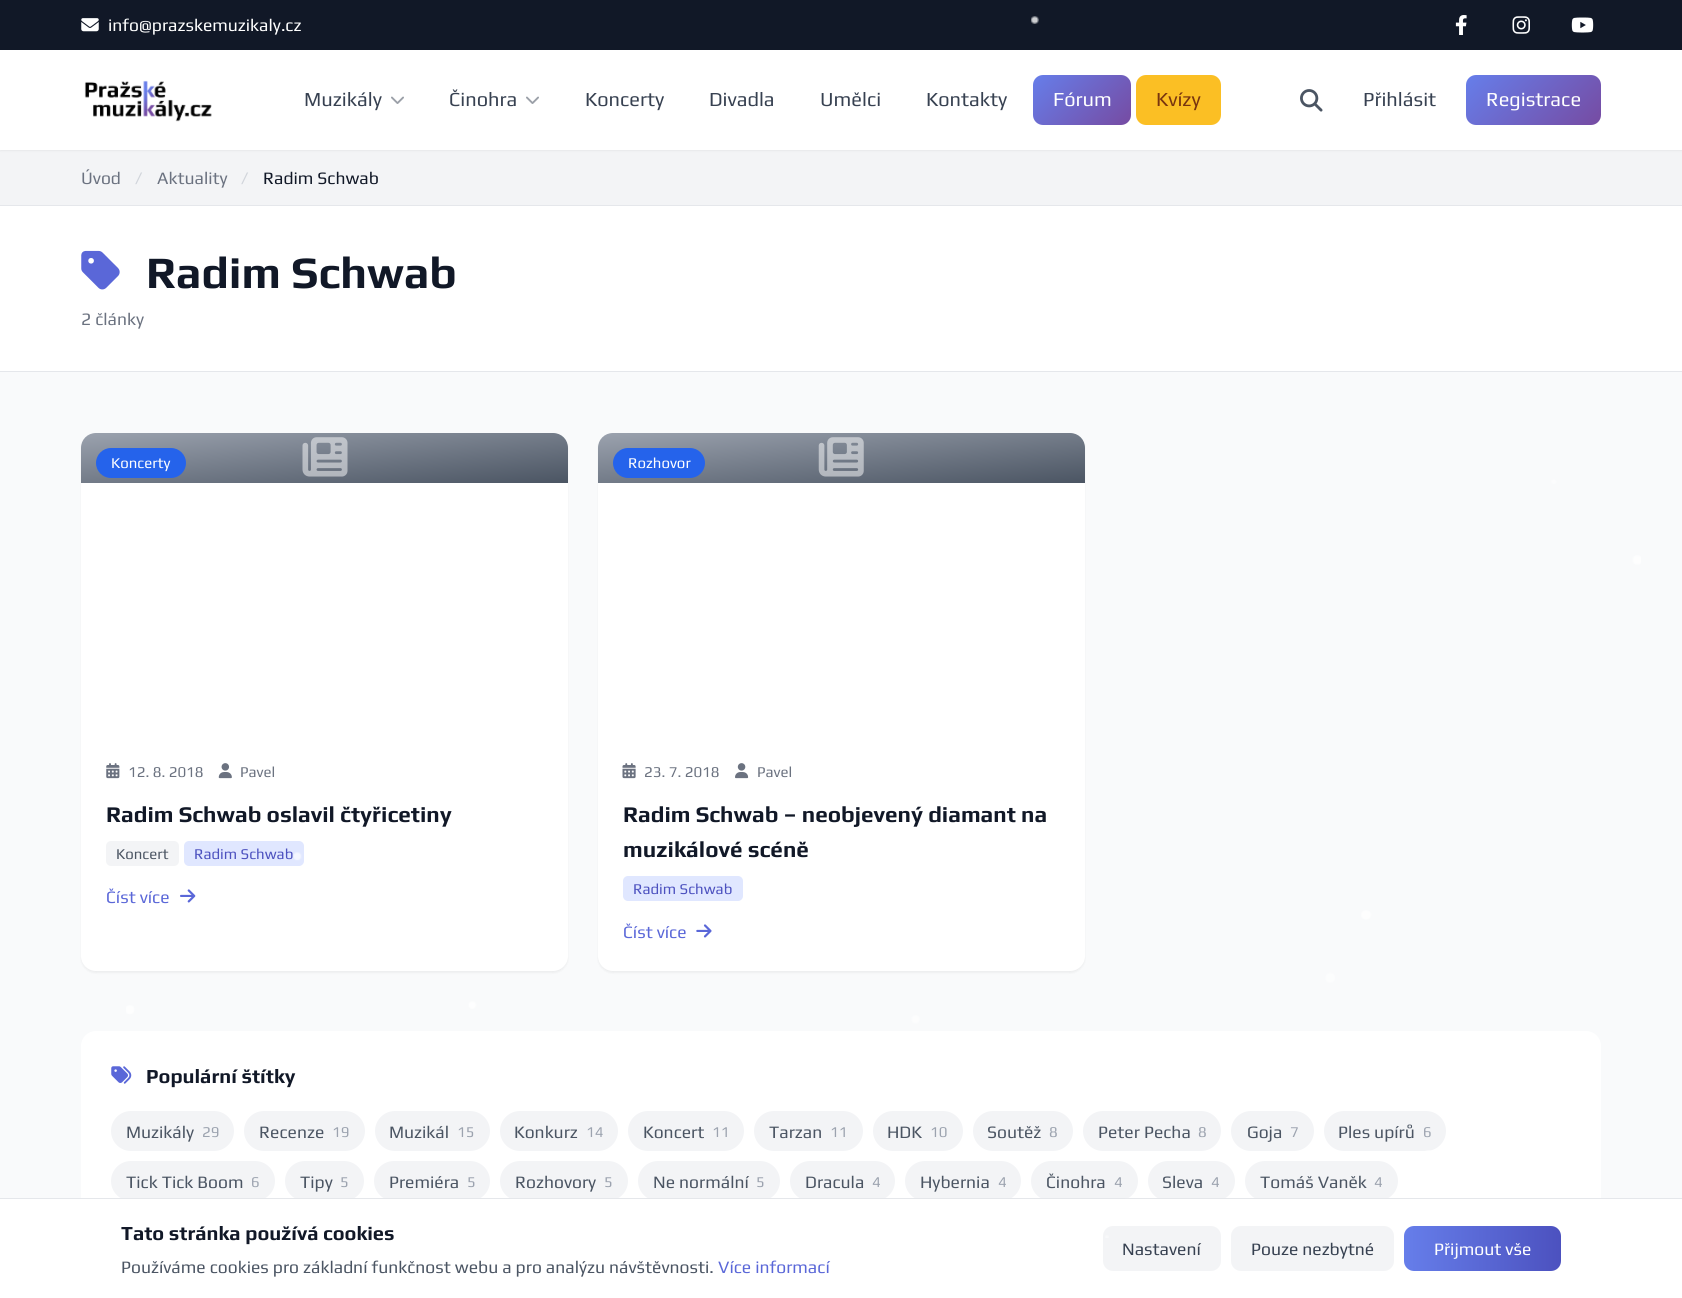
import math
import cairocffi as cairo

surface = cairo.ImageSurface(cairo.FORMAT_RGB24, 1682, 1298)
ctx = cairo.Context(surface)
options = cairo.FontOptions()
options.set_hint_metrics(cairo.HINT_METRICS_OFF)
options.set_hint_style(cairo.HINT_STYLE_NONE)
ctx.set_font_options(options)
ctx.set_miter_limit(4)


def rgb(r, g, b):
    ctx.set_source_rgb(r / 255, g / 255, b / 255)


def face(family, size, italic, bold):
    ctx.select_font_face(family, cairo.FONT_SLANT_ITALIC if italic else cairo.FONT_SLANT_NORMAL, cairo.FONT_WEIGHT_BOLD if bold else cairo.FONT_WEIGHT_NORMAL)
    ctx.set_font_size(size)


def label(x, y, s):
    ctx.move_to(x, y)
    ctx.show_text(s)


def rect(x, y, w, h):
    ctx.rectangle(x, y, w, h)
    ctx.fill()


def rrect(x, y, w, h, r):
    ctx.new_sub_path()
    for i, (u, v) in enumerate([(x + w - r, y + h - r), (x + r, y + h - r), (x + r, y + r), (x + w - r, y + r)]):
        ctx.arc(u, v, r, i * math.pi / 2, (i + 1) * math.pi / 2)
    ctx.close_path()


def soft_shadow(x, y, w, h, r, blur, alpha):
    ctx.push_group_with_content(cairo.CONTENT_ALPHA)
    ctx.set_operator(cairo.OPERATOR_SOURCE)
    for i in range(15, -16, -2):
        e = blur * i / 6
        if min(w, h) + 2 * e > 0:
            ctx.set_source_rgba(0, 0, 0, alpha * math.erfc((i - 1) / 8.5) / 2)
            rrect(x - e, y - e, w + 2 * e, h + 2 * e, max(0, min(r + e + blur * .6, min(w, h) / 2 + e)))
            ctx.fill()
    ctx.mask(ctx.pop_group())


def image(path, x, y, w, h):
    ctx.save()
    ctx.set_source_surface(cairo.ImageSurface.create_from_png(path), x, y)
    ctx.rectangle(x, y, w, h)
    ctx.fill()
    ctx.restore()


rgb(249, 250, 251)
ctx.paint()
rgb(17, 24, 39)
rect(0, 0, 1682, 50)
face('Play', 17.5, 0, 0)
rgb(255, 255, 255)
label(108, 31, 'info@prazskemuzikaly.cz')
image('image2.png', 1455, 15, 12, 20)
image('image3.png', 1512, 16, 18, 18)
image('image4.png', 1571, 17, 23, 16)
rgb(243, 244, 246)
rect(0, 150, 1682, 55)
rgb(0, 0, 0)
soft_shadow(0, 51, 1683, 100, 0, 1, 0.05)
rgb(255, 255, 255)
rect(0, 50, 1682, 100)
image('image5.png', 84, 80, 128, 42)
face('Play', 20, 0, 0)
rgb(55, 65, 81)
label(304, 106, 'Muzikály')
image('image6.png', 391, 96, 13, 8)
label(449, 106, 'Činohra')
image('image6.png', 526, 96, 13, 8)
label(585, 106, 'Koncerty')
label(709, 106, 'Divadla')
label(820, 106, 'Umělci')
label(926, 106, 'Kontakty')
gradient = cairo.LinearGradient(1045, 63, 1119, 137)
gradient.add_color_stop_rgba(0, 0.4, 0.494, 0.918, 1)
gradient.add_color_stop_rgba(1, 0.463, 0.294, 0.635, 1)
ctx.set_source(gradient)
rrect(1033, 75, 98, 50, 10)
ctx.fill()
rgb(255, 255, 255)
label(1053, 106, 'Fórum')
rgb(251, 191, 36)
rrect(1136, 75, 85, 50, 10)
ctx.fill()
rgb(120, 53, 15)
label(1156, 106, 'Kvízy')
image('image7.png', 1300, 89, 23, 23)
rgb(55, 65, 81)
label(1363, 106, 'Přihlásit')
gradient = cairo.LinearGradient(1488, 54, 1580, 146)
gradient.add_color_stop_rgba(0, 0.4, 0.494, 0.918, 1)
gradient.add_color_stop_rgba(1, 0.463, 0.294, 0.635, 1)
ctx.set_source(gradient)
rrect(1466, 75, 135, 50, 10)
ctx.fill()
rgb(255, 255, 255)
label(1486, 106, 'Registrace')
rgb(229, 231, 235)
rect(0, 205, 1682, 1)
face('Play', 17.5, 0, 0)
rgb(209, 213, 219)
label(135, 184, '/')
rgb(107, 114, 128)
label(157, 184, 'Aktuality')
rgb(209, 213, 219)
label(241, 184, '/')
rgb(17, 24, 39)
label(263, 184, 'Radim Schwab')
rgb(255, 255, 255)
rect(0, 206, 1682, 165)
rgb(229, 231, 235)
rect(0, 371, 1682, 1)
face('Play', 45, 0, 1)
rgb(17, 24, 39)
label(146, 288, 'Radim Schwab')
face('Play', 17.5, 0, 0)
rgb(107, 114, 128)
label(81, 325, '2 články')
rgb(0, 0, 0)
soft_shadow(81, 434, 487, 539, 15, 1, 0.05)
rgb(255, 255, 255)
rrect(81, 433, 487, 538, 15)
ctx.fill()
gradient = cairo.LinearGradient(319, 408, 329, 507)
gradient.add_color_stop_rgba(0, 0.612, 0.639, 0.686, 1)
gradient.add_color_stop_rgba(1, 0.294, 0.333, 0.388, 1)
ctx.set_source(gradient)
ctx.new_path()
ctx.move_to(96, 433)
ctx.line_to(553, 433)
ctx.curve_to(561.5, 433, 568, 439.5, 568, 448)
ctx.line_to(568, 483)
ctx.line_to(81, 483)
ctx.line_to(81, 448)
ctx.curve_to(81, 439.5, 87.5, 433, 96, 433)
ctx.close_path()
ctx.fill()
image('image9.png', 302, 437, 46, 40)
rgb(37, 99, 235)
rrect(96, 448, 90, 30, 15)
ctx.fill()
face('Play', 15, 0, 0)
rgb(255, 255, 255)
label(111, 468, 'Koncerty')
rgb(107, 114, 128)
label(128, 777, '12. 8. 2018')
image('image11.png', 218, 763, 14, 16)
label(240, 777, 'Pavel')
face('Play', 22.5, 0, 1)
rgb(17, 24, 39)
label(106, 822, 'Radim Schwab oslavil čtyřicetiny')
rgb(243, 244, 246)
rrect(106, 841, 73, 25, 5)
ctx.fill()
face('Play', 15, 0, 0)
rgb(75, 85, 99)
label(116, 859, 'Koncert')
rgb(224, 231, 255)
rrect(184, 841, 120, 25, 5)
ctx.fill()
rgb(76, 81, 191)
label(194, 859, 'Radim Schwab')
face('Play', 17.5, 0, 0)
rgb(90, 103, 216)
label(106, 903, 'Číst více')
image('image12.png', 180, 889, 16, 14)
rgb(0, 0, 0)
soft_shadow(598, 434, 487, 539, 15, 1, 0.05)
rgb(255, 255, 255)
rrect(598, 433, 487, 538, 15)
ctx.fill()
gradient = cairo.LinearGradient(836, 408, 846, 507)
gradient.add_color_stop_rgba(0, 0.612, 0.639, 0.686, 1)
gradient.add_color_stop_rgba(1, 0.294, 0.333, 0.388, 1)
ctx.set_source(gradient)
ctx.new_path()
ctx.move_to(613, 433)
ctx.line_to(1070, 433)
ctx.curve_to(1078.5, 433, 1085, 439.5, 1085, 448)
ctx.line_to(1085, 483)
ctx.line_to(598, 483)
ctx.line_to(598, 448)
ctx.curve_to(598, 439.5, 604.5, 433, 613, 433)
ctx.close_path()
ctx.fill()
image('image13.png', 818, 437, 46, 40)
rgb(37, 99, 235)
rrect(613, 448, 92, 30, 15)
ctx.fill()
face('Play', 15, 0, 0)
rgb(255, 255, 255)
label(628, 468, 'Rozhovor')
image('image14.png', 622, 763, 14, 16)
rgb(107, 114, 128)
label(644, 777, '23. 7. 2018')
image('image15.png', 735, 763, 14, 16)
label(757, 777, 'Pavel')
face('Play', 22.5, 0, 1)
rgb(17, 24, 39)
label(623, 822, 'Radim Schwab – neobjevený diamant na')
label(623, 857, 'muzikálové scéně')
rgb(224, 231, 255)
rrect(623, 876, 120, 25, 5)
ctx.fill()
face('Play', 15, 0, 0)
rgb(76, 81, 191)
label(633, 894, 'Radim Schwab')
face('Play', 17.5, 0, 0)
rgb(90, 103, 216)
label(623, 938, 'Číst více')
image('image16.png', 696, 924, 16, 14)
rgb(255, 255, 255)
rrect(81, 1031, 1520, 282, 15)
ctx.fill()
image('image17.png', 111, 1066, 21, 18)
face('Play', 20, 0, 1)
rgb(17, 24, 39)
label(146, 1083, 'Populární štítky')
rgb(243, 244, 246)
rrect(111, 1111, 123, 40, 20)
ctx.fill()
face('Play', 17.5, 0, 0)
rgb(75, 85, 99)
label(126, 1138, 'Muzikály')
face('Play', 15, 0, 0)
rgb(156, 163, 175)
label(202, 1137, '29')
rgb(243, 244, 246)
rrect(244, 1111, 121, 40, 20)
ctx.fill()
face('Play', 17.5, 0, 0)
rgb(75, 85, 99)
label(259, 1138, 'Recenze')
face('Play', 15, 0, 0)
rgb(156, 163, 175)
label(332, 1137, '19')
rgb(243, 244, 246)
rrect(375, 1111, 115, 40, 20)
ctx.fill()
face('Play', 17.5, 0, 0)
rgb(75, 85, 99)
label(389, 1138, 'Muzikál')
face('Play', 15, 0, 0)
rgb(156, 163, 175)
label(457, 1137, '15')
rgb(243, 244, 246)
rrect(500, 1111, 118, 40, 20)
ctx.fill()
face('Play', 17.5, 0, 0)
rgb(75, 85, 99)
label(514, 1138, 'Konkurz')
face('Play', 15, 0, 0)
rgb(156, 163, 175)
label(586, 1137, '14')
rgb(243, 244, 246)
rrect(628, 1111, 116, 40, 20)
ctx.fill()
face('Play', 17.5, 0, 0)
rgb(75, 85, 99)
label(643, 1138, 'Koncert')
face('Play', 15, 0, 0)
rgb(156, 163, 175)
label(712, 1137, '11')
rgb(243, 244, 246)
rrect(754, 1111, 109, 40, 20)
ctx.fill()
face('Play', 17.5, 0, 0)
rgb(75, 85, 99)
label(769, 1138, 'Tarzan')
face('Play', 15, 0, 0)
rgb(156, 163, 175)
label(830, 1137, '11')
rgb(243, 244, 246)
rrect(873, 1111, 90, 40, 20)
ctx.fill()
face('Play', 17.5, 0, 0)
rgb(75, 85, 99)
label(887, 1138, 'HDK')
face('Play', 15, 0, 0)
rgb(156, 163, 175)
label(930, 1137, '10')
rgb(243, 244, 246)
rrect(973, 1111, 100, 40, 20)
ctx.fill()
face('Play', 17.5, 0, 0)
rgb(75, 85, 99)
label(987, 1138, 'Soutěž')
face('Play', 15, 0, 0)
rgb(156, 163, 175)
label(1049, 1137, '8')
rgb(243, 244, 246)
rrect(1083, 1111, 138, 40, 20)
ctx.fill()
face('Play', 17.5, 0, 0)
rgb(75, 85, 99)
label(1098, 1138, 'Peter Pecha')
face('Play', 15, 0, 0)
rgb(156, 163, 175)
label(1198, 1137, '8')
rgb(243, 244, 246)
rrect(1231, 1111, 83, 40, 20)
ctx.fill()
face('Play', 17.5, 0, 0)
rgb(75, 85, 99)
label(1247, 1138, 'Goja')
face('Play', 15, 0, 0)
rgb(156, 163, 175)
label(1290, 1137, '7')
rgb(243, 244, 246)
rrect(1324, 1111, 122, 40, 20)
ctx.fill()
face('Play', 17.5, 0, 0)
rgb(75, 85, 99)
label(1338, 1138, 'Ples upírů')
face('Play', 15, 0, 0)
rgb(156, 163, 175)
label(1423, 1137, '6')
rgb(243, 244, 246)
rrect(111, 1161, 164, 40, 20)
ctx.fill()
face('Play', 17.5, 0, 0)
rgb(75, 85, 99)
label(126, 1188, 'Tick Tick Boom')
face('Play', 15, 0, 0)
rgb(156, 163, 175)
label(251, 1187, '6')
rgb(243, 244, 246)
rrect(285, 1161, 79, 40, 20)
ctx.fill()
face('Play', 17.5, 0, 0)
rgb(75, 85, 99)
label(300, 1188, 'Tipy')
face('Play', 15, 0, 0)
rgb(156, 163, 175)
label(340, 1187, '5')
rgb(243, 244, 246)
rrect(374, 1161, 116, 40, 20)
ctx.fill()
face('Play', 17.5, 0, 0)
rgb(75, 85, 99)
label(389, 1188, 'Premiéra')
face('Play', 15, 0, 0)
rgb(156, 163, 175)
label(467, 1187, '5')
rgb(243, 244, 246)
rrect(500, 1161, 128, 40, 20)
ctx.fill()
face('Play', 17.5, 0, 0)
rgb(75, 85, 99)
label(515, 1188, 'Rozhovory')
face('Play', 15, 0, 0)
rgb(156, 163, 175)
label(604, 1187, '5')
rgb(243, 244, 246)
rrect(638, 1161, 142, 40, 20)
ctx.fill()
face('Play', 17.5, 0, 0)
rgb(75, 85, 99)
label(653, 1188, 'Ne normální')
face('Play', 15, 0, 0)
rgb(156, 163, 175)
label(756, 1187, '5')
rgb(243, 244, 246)
rrect(790, 1161, 105, 40, 20)
ctx.fill()
face('Play', 17.5, 0, 0)
rgb(75, 85, 99)
label(805, 1188, 'Dracula')
face('Play', 15, 0, 0)
rgb(156, 163, 175)
label(872, 1187, '4')
rgb(243, 244, 246)
rrect(905, 1161, 116, 40, 20)
ctx.fill()
face('Play', 17.5, 0, 0)
rgb(75, 85, 99)
label(920, 1188, 'Hybernia')
face('Play', 15, 0, 0)
rgb(156, 163, 175)
label(998, 1187, '4')
rgb(243, 244, 246)
rrect(1031, 1161, 107, 40, 20)
ctx.fill()
face('Play', 17.5, 0, 0)
rgb(75, 85, 99)
label(1046, 1188, 'Činohra')
face('Play', 15, 0, 0)
rgb(156, 163, 175)
label(1114, 1187, '4')
rgb(243, 244, 246)
rrect(1148, 1161, 87, 40, 20)
ctx.fill()
face('Play', 17.5, 0, 0)
rgb(75, 85, 99)
label(1162, 1188, 'Sleva')
face('Play', 15, 0, 0)
rgb(156, 163, 175)
label(1211, 1187, '4')
rgb(243, 244, 246)
rrect(1245, 1161, 153, 40, 20)
ctx.fill()
face('Play', 17.5, 0, 0)
rgb(75, 85, 99)
label(1260, 1188, 'Tomáš Vaněk')
face('Play', 15, 0, 0)
rgb(156, 163, 175)
label(1374, 1187, '4')
rgb(255, 255, 255)
rect(0, 1199, 1682, 99)
rgb(229, 231, 235)
rect(0, 1198, 1682, 1)
face('Play', 20, 0, 1)
rgb(17, 24, 39)
label(121, 1240, 'Tato stránka používá cookies')
rgb(243, 244, 246)
rrect(1103, 1226, 118, 45, 10)
ctx.fill()
rrect(1231, 1226, 163, 45, 10)
ctx.fill()
gradient = cairo.LinearGradient(1404, 1249, 1561, 1249)
gradient.add_color_stop_rgba(0, 0.4, 0.494, 0.918, 1)
gradient.add_color_stop_rgba(1, 0.298, 0.318, 0.749, 1)
ctx.set_source(gradient)
rrect(1404, 1226, 157, 45, 10)
ctx.fill()
image('image0.png', 126, 16, 1515, 1222)
image('image1.png', 81, 18, 18, 14)
face('Play', 17.5, 0, 0)
rgb(107, 114, 128)
label(81, 184, 'Úvod')
image('image8.png', 81, 250, 39, 40)
image('image10.png', 106, 763, 14, 16)
rgb(75, 85, 99)
label(121, 1273, 'Používáme cookies pro základní funkčnost webu a pro analýzu návštěvnosti.')
rgb(90, 103, 216)
label(718, 1273, 'Více informací')
rgb(55, 65, 81)
label(1122, 1255, 'Nastavení')
label(1251, 1255, 'Pouze nezbytné')
rgb(255, 255, 255)
label(1434, 1255, 'Přijmout vše')
surface.write_to_png('render.png')
